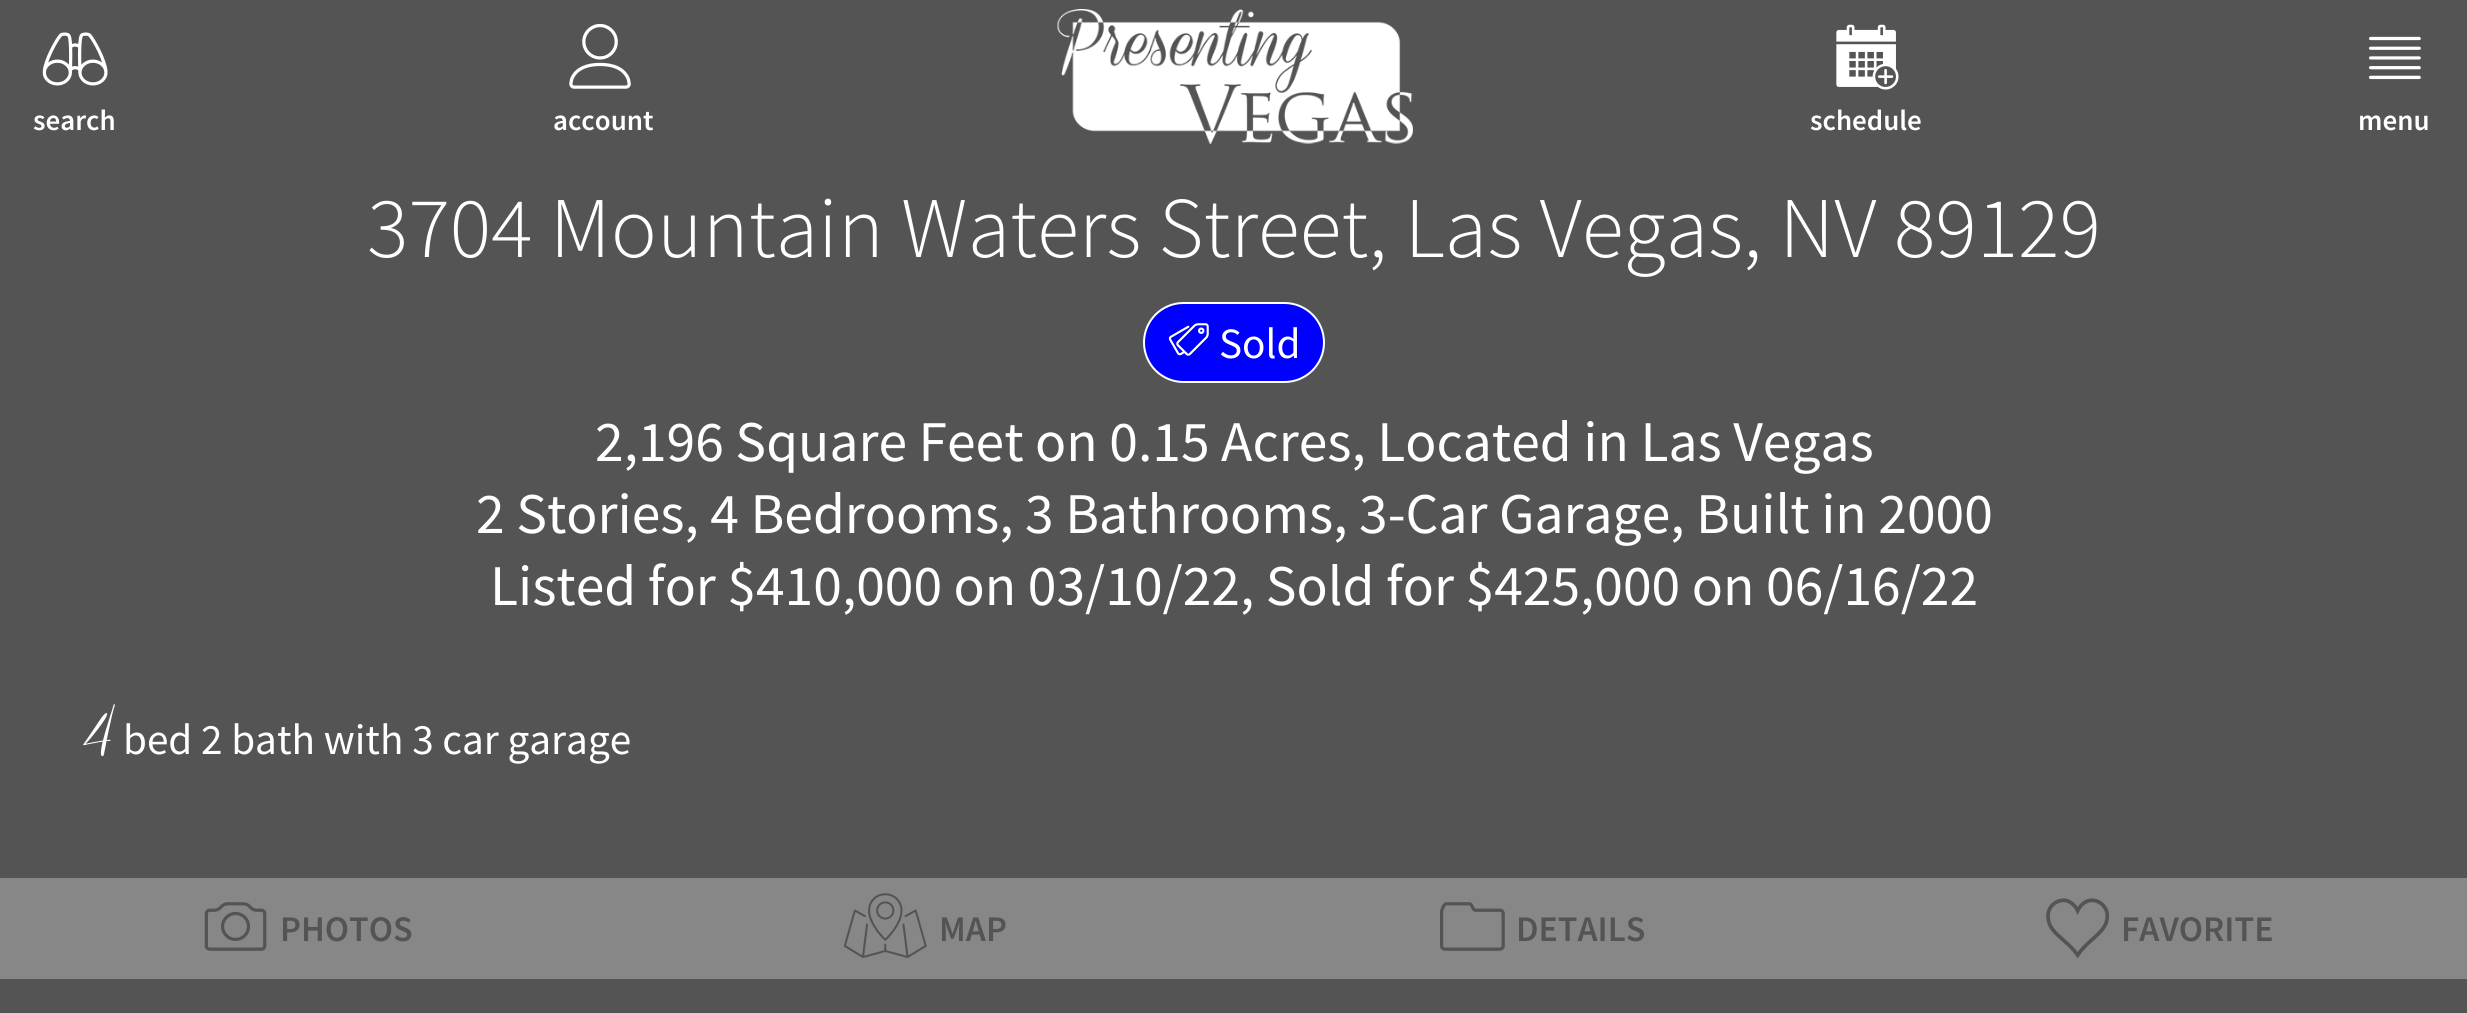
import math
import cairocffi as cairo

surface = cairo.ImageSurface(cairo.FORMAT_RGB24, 2467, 1013)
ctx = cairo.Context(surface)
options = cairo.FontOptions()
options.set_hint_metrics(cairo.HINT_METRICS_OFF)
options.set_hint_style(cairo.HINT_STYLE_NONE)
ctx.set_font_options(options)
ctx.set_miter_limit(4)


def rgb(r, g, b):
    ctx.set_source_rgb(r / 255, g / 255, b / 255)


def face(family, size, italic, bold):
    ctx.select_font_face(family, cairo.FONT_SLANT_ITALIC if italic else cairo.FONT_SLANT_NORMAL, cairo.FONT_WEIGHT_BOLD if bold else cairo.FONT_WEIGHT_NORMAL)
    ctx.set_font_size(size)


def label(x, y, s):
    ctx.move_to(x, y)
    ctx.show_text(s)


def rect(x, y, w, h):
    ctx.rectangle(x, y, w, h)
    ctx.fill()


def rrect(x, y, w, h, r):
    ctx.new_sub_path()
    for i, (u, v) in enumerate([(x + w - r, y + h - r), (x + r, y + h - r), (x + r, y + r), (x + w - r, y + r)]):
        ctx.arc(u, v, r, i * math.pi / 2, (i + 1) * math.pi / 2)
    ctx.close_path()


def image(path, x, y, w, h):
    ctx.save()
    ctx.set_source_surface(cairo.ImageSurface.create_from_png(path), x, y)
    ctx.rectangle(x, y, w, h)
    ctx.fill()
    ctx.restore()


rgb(84, 84, 84)
ctx.paint()
image('image0.png', 42, 32, 66, 54)
face('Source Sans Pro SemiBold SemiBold', 29, 0, 0)
rgb(255, 255, 255)
label(33, 130, 'search')
image('image1.png', 569, 23, 62, 66)
label(553, 130, 'account')
image('image2.png', 1057, 9, 356, 135)
image('image3.png', 1836, 24, 63, 66)
label(1810, 130, 'schedule')
image('image4.png', 2369, 36, 52, 44)
label(2358, 130, 'menu')
face('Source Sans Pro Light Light', 86.4, 0, 0)
label(367, 257, '3704 Mountain Waters Street, Las Vegas, NV 89129')
rgb(0, 0, 255)
rrect(1144, 303, 180, 79, 39.5)
ctx.fill_preserve()
rgb(255, 255, 255)
ctx.stroke()
image('image5.png', 1168, 323, 41, 33)
face('Source Sans Pro', 43.25, 0, 0)
label(1219, 358, 'Sold')
face('Source Sans Pro', 57.6, 0, 0)
label(595, 461, '2,196 Square Feet on 0.15 Acres, Located in Las Vegas')
label(476, 533, '2 Stories, 4 Bedrooms, 3 Bathrooms, 3-Car Garage, Built in 2000')
label(490, 605, 'Listed for $410,000 on 03/10/22, Sold for $425,000 on 06/16/22')
face('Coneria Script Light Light', 69, 0, 0)
label(82, 754, '4')
face('Source Sans Pro', 43.25, 0, 0)
label(123, 754, 'bed 2 bath with 3 car garage')
rgb(135, 135, 135)
rect(0, 878, 2467, 101)
image('image6.png', 204, 902, 63, 49)
face('Source Sans Pro SemiBold SemiBold', 36, 0, 0)
rgb(84, 84, 84)
label(280, 941, 'PHOTOS')
image('image7.png', 843, 893, 84, 65)
label(939, 941, 'MAP')
image('image8.png', 1440, 902, 65, 49)
label(1516, 941, 'DETAILS')
image('image9.png', 2046, 898, 64, 61)
label(2121, 941, 'FAVORITE')
surface.write_to_png('render.png')
